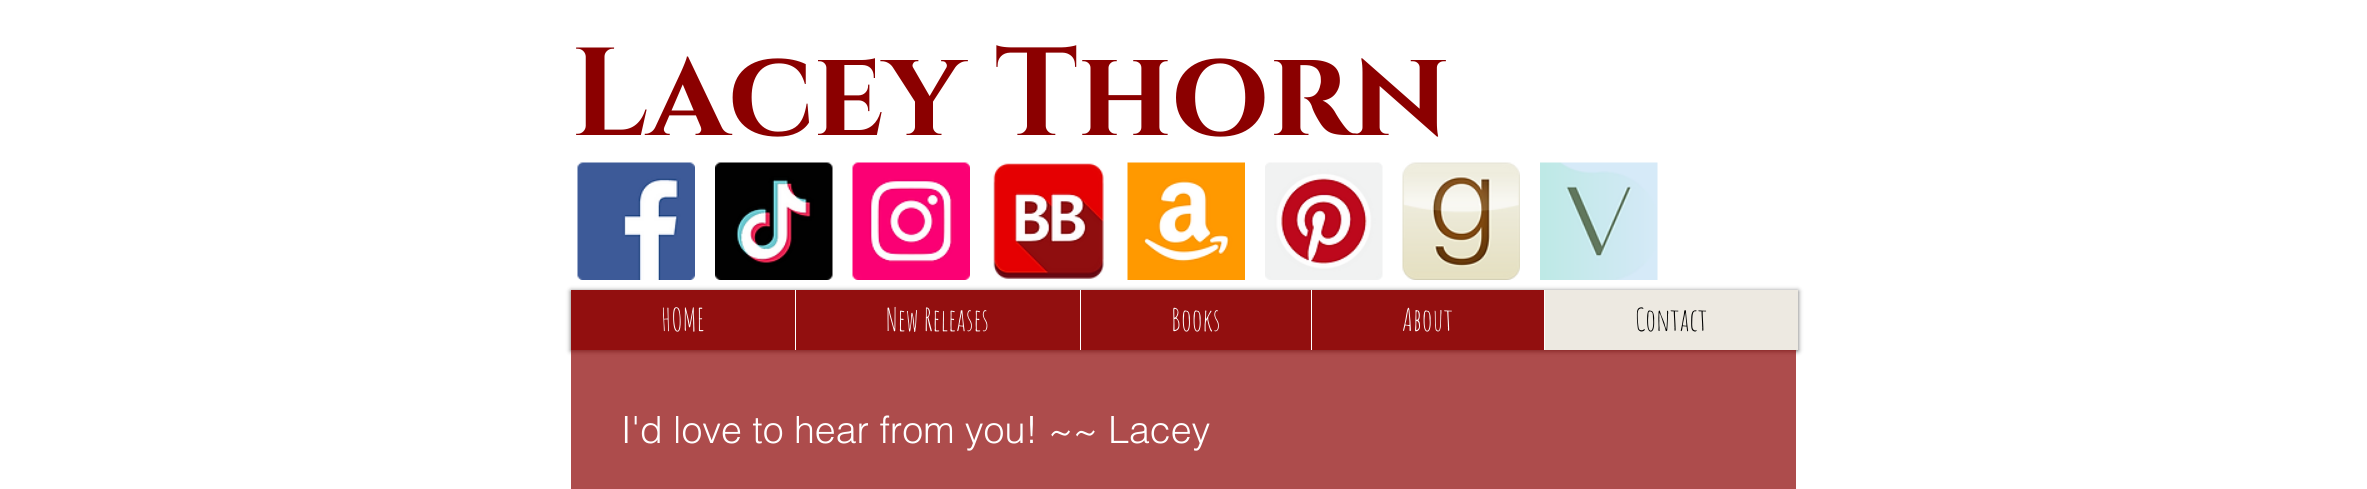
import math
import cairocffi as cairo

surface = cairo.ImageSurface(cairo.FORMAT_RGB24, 2367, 489)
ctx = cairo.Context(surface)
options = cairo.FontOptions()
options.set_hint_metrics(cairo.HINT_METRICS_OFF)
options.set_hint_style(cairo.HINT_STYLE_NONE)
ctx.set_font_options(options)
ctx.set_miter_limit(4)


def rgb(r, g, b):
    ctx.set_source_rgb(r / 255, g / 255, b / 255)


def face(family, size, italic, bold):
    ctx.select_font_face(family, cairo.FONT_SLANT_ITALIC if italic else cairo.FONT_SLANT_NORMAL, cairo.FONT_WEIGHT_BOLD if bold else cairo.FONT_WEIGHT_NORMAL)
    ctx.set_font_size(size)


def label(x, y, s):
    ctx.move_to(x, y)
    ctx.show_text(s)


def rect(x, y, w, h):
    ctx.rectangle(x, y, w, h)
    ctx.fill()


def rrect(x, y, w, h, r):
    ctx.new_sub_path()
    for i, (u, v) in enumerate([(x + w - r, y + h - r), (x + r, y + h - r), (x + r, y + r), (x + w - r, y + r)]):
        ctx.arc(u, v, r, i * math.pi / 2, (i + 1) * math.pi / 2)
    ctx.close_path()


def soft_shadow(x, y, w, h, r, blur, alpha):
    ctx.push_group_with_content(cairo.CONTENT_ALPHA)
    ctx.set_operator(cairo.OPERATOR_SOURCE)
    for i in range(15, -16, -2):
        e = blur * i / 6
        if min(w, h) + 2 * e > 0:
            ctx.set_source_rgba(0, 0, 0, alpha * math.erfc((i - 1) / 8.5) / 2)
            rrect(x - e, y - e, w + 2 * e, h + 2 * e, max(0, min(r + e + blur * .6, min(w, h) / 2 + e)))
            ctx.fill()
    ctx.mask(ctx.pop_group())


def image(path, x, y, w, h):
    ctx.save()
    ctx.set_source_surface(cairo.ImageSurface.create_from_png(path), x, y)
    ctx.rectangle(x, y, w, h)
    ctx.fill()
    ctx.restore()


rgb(255, 255, 255)
ctx.paint()
face('Cinzel', 125, 0, 1)
rgb(139, 0, 0)
label(571, 135, 'Lacey Thorn')
image('image0.png', 577, 162, 118, 118)
image('image1.png', 715, 162, 118, 118)
image('image2.png', 852, 162, 118, 118)
image('image3.png', 993, 163, 111, 116)
image('image4.png', 1127, 162, 118, 118)
image('image5.png', 1265, 162, 118, 118)
image('image6.png', 1402, 162, 118, 118)
image('image7.png', 1540, 162, 118, 118)
ctx.save()
ctx.set_fill_rule(cairo.FILL_RULE_EVEN_ODD)
ctx.new_path()
ctx.move_to(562, 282)
ctx.line_to(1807, 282)
ctx.line_to(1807, 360)
ctx.line_to(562, 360)
ctx.close_path()
ctx.move_to(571, 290)
ctx.line_to(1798, 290)
ctx.line_to(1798, 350)
ctx.line_to(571, 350)
ctx.close_path()
ctx.clip()
rgb(0, 0, 0)
soft_shadow(571, 291, 1227, 60, 0, 2.5, 0.6)
ctx.restore()
ctx.set_source_rgba(0.545, 0, 0, 0.94)
rect(571, 290, 973, 60)
face('Amatic SC', 31, 0, 0)
rgb(255, 255, 255)
label(661, 331, 'HOME')
rect(795, 290, 1, 60)
label(886, 331, 'New Releases')
rect(1080, 290, 1, 60)
label(1171, 331, 'Books')
rect(1311, 290, 1, 60)
label(1402, 331, 'About')
rgb(237, 233, 225)
rect(1545, 290, 253, 60)
rgb(0, 0, 0)
label(1635, 331, 'Contact')
ctx.set_source_rgba(0.545, 0, 0, 0.7)
rect(571, 350, 1225, 139)
face('helvetica Light', 37.5, 0, 0)
rgb(255, 255, 255)
label(621, 443, 'I\'d love to hear from you! ~~ Lacey')
surface.write_to_png('render.png')
